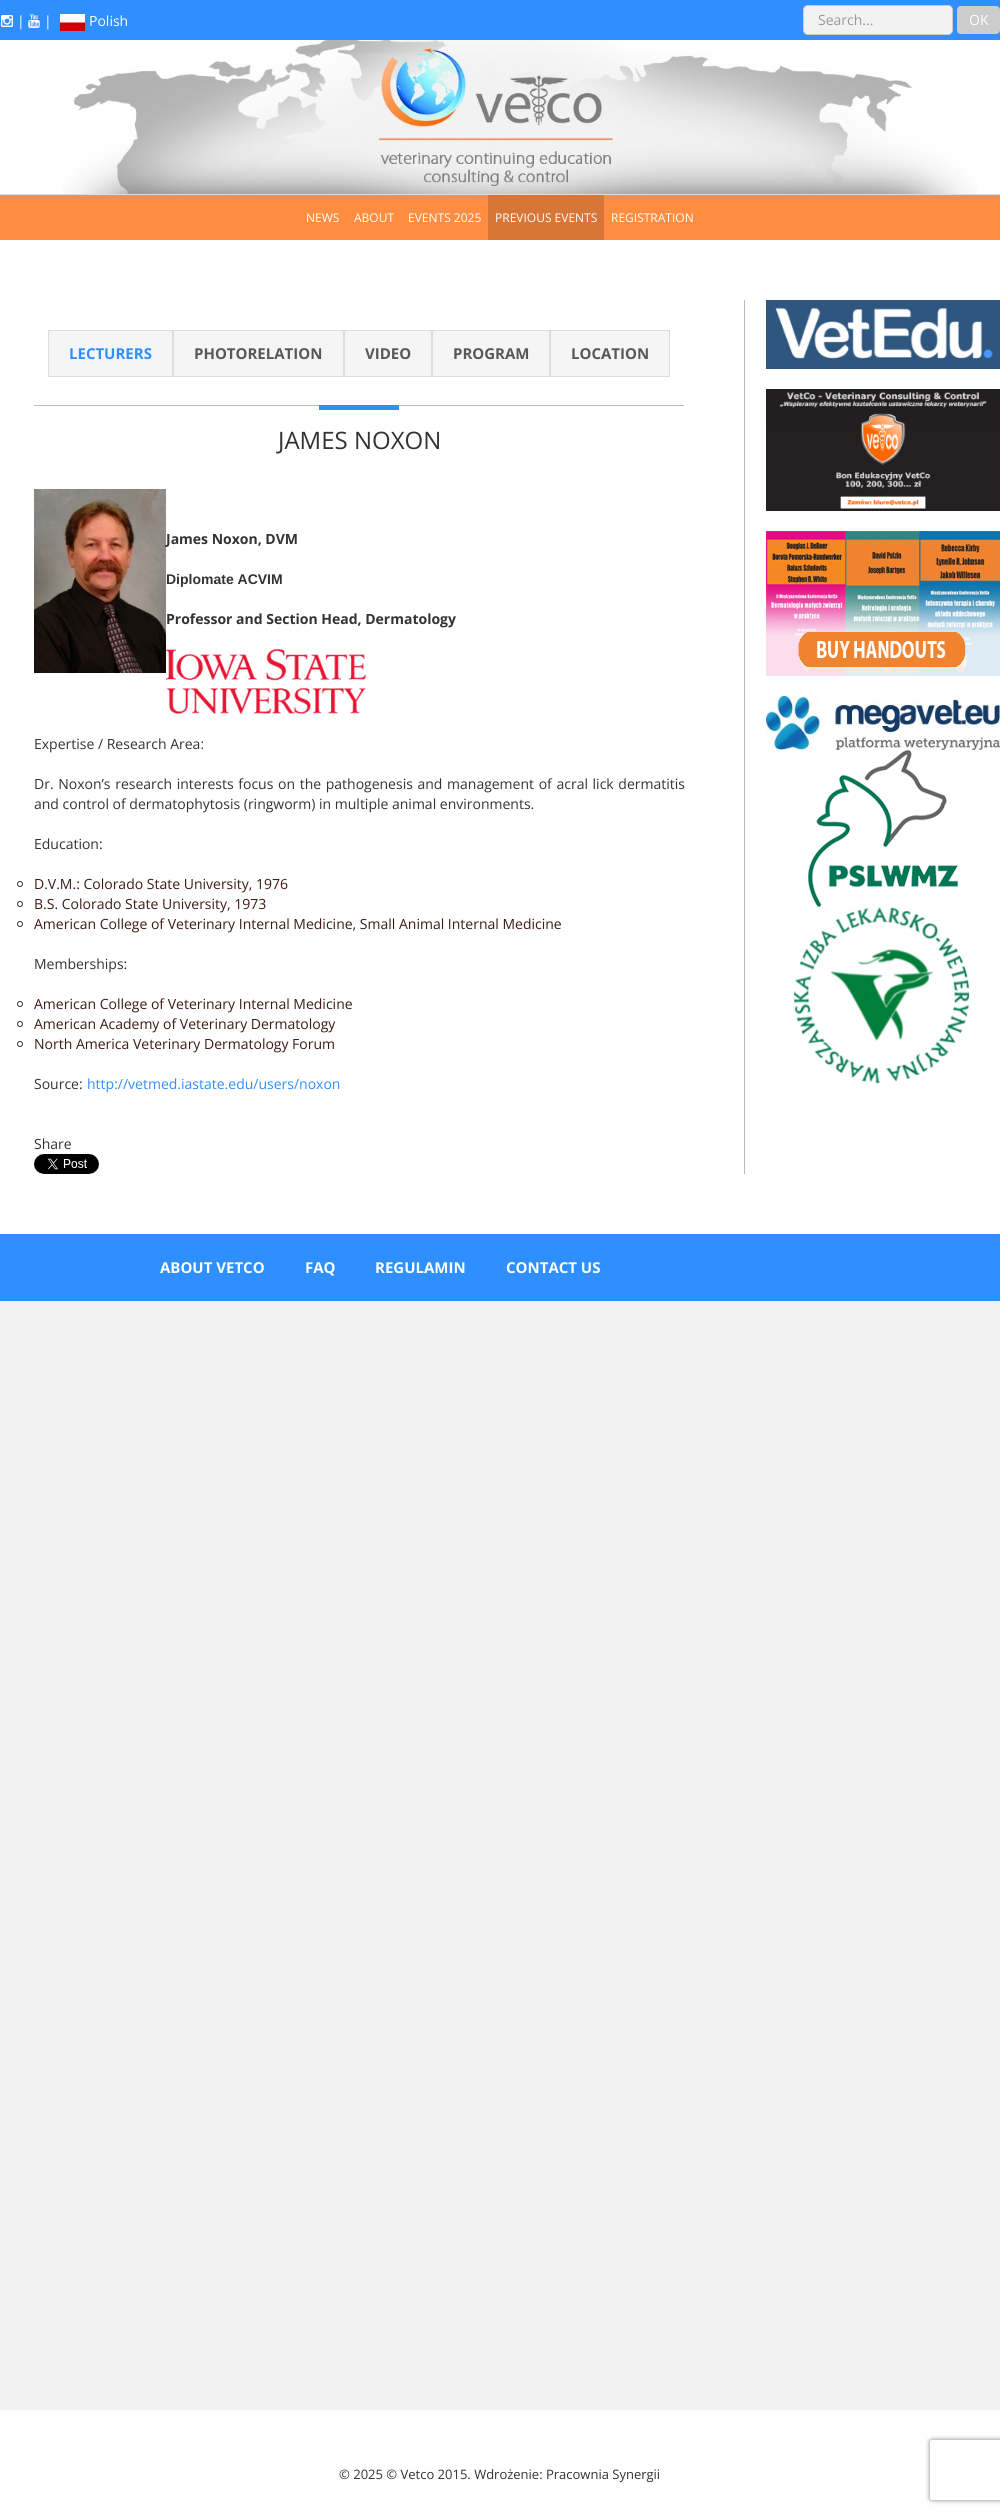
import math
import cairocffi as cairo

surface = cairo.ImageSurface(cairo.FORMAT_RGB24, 1000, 2514)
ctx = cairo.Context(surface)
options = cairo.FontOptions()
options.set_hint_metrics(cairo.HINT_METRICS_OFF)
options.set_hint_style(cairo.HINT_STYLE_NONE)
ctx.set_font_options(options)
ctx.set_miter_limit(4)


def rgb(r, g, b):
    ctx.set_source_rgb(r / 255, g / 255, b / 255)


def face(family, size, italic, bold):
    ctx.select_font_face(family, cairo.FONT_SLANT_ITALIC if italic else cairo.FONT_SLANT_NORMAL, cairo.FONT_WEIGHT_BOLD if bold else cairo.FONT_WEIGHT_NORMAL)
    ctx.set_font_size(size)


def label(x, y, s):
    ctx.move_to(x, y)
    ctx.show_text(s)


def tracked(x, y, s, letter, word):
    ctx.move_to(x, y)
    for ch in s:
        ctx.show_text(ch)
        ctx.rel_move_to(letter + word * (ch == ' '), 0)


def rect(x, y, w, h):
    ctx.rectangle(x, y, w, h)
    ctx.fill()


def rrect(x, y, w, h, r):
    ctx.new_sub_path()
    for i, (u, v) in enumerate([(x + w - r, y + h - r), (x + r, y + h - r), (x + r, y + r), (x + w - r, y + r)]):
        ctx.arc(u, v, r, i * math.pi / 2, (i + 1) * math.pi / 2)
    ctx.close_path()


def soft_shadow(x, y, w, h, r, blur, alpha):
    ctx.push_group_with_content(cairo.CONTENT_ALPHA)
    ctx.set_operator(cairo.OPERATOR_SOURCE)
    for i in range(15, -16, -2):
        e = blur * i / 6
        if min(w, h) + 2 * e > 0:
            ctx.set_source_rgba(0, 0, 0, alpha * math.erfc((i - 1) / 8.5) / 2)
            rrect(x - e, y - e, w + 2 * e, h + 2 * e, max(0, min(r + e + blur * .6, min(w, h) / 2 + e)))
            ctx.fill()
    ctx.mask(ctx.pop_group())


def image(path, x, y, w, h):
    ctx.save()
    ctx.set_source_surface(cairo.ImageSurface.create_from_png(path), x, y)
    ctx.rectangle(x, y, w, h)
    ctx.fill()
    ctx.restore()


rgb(242, 242, 242)
ctx.paint()
rgb(47, 143, 254)
rect(0, 0, 1000, 40)
image('image0.png', 1, 15, 12, 12)
face('Open Sans', 14, 0, 0)
rgb(255, 255, 255)
label(17, 26, '|')
image('image1.png', 28, 14, 12, 14)
label(44, 26, '|')
image('image2.png', 60, 14, 25, 17)
label(89, 26, 'Polish')
rgb(242, 242, 242)
rrect(803.5, 5.5, 149, 29, 4.5)
ctx.fill_preserve()
rgb(204, 204, 204)
ctx.set_line_width(1)
ctx.stroke()
rgb(153, 153, 153)
label(818, 25, 'Search...')
rgb(204, 204, 204)
rrect(957, 6, 43, 28, 4)
ctx.fill()
rgb(255, 255, 255)
label(969, 25, 'OK')
rect(0, 40, 1000, 154)
rgb(221, 221, 221)
rect(0, 194, 1000, 1)
image('image3.png', 63, 40, 914, 154)
rgb(254, 140, 65)
rect(0, 195, 1000, 45)
face('Open Sans', 12, 0, 0)
rgb(255, 255, 255)
label(306, 222, 'NEWS')
label(354, 222, 'ABOUT')
label(408, 222, 'EVENTS 2025')
rgb(215, 118, 55)
rect(488, 195, 116, 45)
rgb(255, 255, 255)
label(495, 222, 'PREVIOUS EVENTS')
label(611, 222, 'REGISTRATION')
rect(0, 240, 1000, 994)
rgb(187, 187, 187)
rect(744, 300, 1, 874)
rgb(245, 245, 245)
ctx.rectangle(48.5, 330.5, 124, 46)
ctx.fill_preserve()
rgb(221, 221, 221)
ctx.stroke()
face('Open Sans', 15, 0, 1)
rgb(47, 143, 254)
label(69, 359, 'LECTURERS')
rgb(245, 245, 245)
ctx.rectangle(173.5, 330.5, 170, 46)
ctx.fill_preserve()
rgb(221, 221, 221)
ctx.stroke()
rgb(88, 88, 88)
label(194, 359, 'PHOTORELATION')
rgb(245, 245, 245)
ctx.rectangle(344.5, 330.5, 87, 46)
ctx.fill_preserve()
rgb(221, 221, 221)
ctx.stroke()
rgb(88, 88, 88)
label(365, 359, 'VIDEO')
rgb(245, 245, 245)
ctx.rectangle(432.5, 330.5, 117, 46)
ctx.fill_preserve()
rgb(221, 221, 221)
ctx.stroke()
rgb(88, 88, 88)
label(453, 359, 'PROGRAM')
rgb(245, 245, 245)
ctx.rectangle(550.5, 330.5, 119, 46)
ctx.fill_preserve()
rgb(221, 221, 221)
ctx.stroke()
rgb(88, 88, 88)
label(571, 359, 'LOCATION')
rgb(187, 187, 187)
rect(34, 405, 650, 1)
rgb(47, 143, 254)
rect(319, 405, 80, 5)
face('Open Sans', 24, 0, 0)
rgb(51, 51, 51)
label(278, 449, 'JAMES NOXON')
image('image4.png', 34, 489, 132, 184)
face('Open Sans', 14, 0, 1)
label(166, 544, 'James Noxon, DVM')
face('Liberation Sans', 14, 0, 1)
label(166, 584, 'Diplomate ACVIM')
face('Open Sans', 14, 0, 1)
label(166, 624, 'Professor and Section Head, Dermatology')
image('image5.png', 166, 649, 200, 65)
face('Open Sans', 14, 0, 0)
label(34, 749, 'Expertise / Research Area:')
tracked(34, 789, 'Dr. Noxon’s research interests focus on the pathogenesis and management of acral lick dermatitis', 0, 1)
label(34, 809, 'and control of dermatophytosis (ringworm) in multiple animal environments.')
label(34, 849, 'Education:')
ctx.new_path()
ctx.arc(20, 884, 2.5, 0, 2 * math.pi)
ctx.stroke()
rgb(60, 27, 22)
label(34, 889, 'D.V.M.: Colorado State University, 1976')
ctx.new_path()
ctx.arc(20, 904, 2.5, 0, 2 * math.pi)
rgb(51, 51, 51)
ctx.stroke()
rgb(60, 27, 22)
label(34, 909, 'B.S. Colorado State University, 1973')
ctx.new_path()
ctx.arc(20, 924, 2.5, 0, 2 * math.pi)
rgb(51, 51, 51)
ctx.stroke()
rgb(60, 27, 22)
label(34, 929, 'American College of Veterinary Internal Medicine, Small Animal Internal Medicine')
rgb(51, 51, 51)
label(34, 969, 'Memberships:')
ctx.new_path()
ctx.arc(20, 1004, 2.5, 0, 2 * math.pi)
ctx.stroke()
rgb(60, 27, 22)
label(34, 1009, 'American College of Veterinary Internal Medicine')
ctx.new_path()
ctx.arc(20, 1024, 2.5, 0, 2 * math.pi)
rgb(51, 51, 51)
ctx.stroke()
rgb(60, 27, 22)
label(34, 1029, 'American Academy of Veterinary Dermatology')
ctx.new_path()
ctx.arc(20, 1044, 2.5, 0, 2 * math.pi)
rgb(51, 51, 51)
ctx.stroke()
rgb(60, 27, 22)
label(34, 1049, 'North America Veterinary Dermatology Forum')
rgb(51, 51, 51)
label(34, 1089, 'Source:')
rgb(47, 143, 254)
label(87, 1089, 'http://vetmed.iastate.edu/users/noxon')
rgb(51, 51, 51)
label(34, 1149, 'Share')
image('image6.png', 34, 1154, 65, 20)
image('image7.png', 766, 300, 234, 69)
image('image8.png', 766, 389, 234, 122)
image('image9.png', 766, 531, 234, 145)
image('image10.png', 766, 696, 234, 54)
image('image11.png', 808, 750, 150, 157)
image('image12.png', 794, 907, 176, 177)
rgb(47, 143, 254)
rect(0, 1234, 1000, 67)
face('Open Sans', 15, 0, 1)
rgb(255, 255, 255)
label(160, 1273, 'ABOUT VETCO')
label(305, 1273, 'FAQ')
label(375, 1273, 'REGULAMIN')
label(506, 1273, 'CONTACT US')
rect(0, 2410, 1000, 104)
face('Open Sans', 13, 0, 0)
rgb(51, 51, 51)
label(339, 2479, '© 2025 © Vetco 2015. Wdrożenie: Pracownia Synergii')
ctx.save()
ctx.set_fill_rule(cairo.FILL_RULE_EVEN_ODD)
ctx.new_path()
ctx.move_to(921, 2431)
ctx.line_to(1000, 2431)
ctx.line_to(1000, 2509)
ctx.line_to(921, 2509)
ctx.close_path()
ctx.move_to(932, 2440)
ctx.line_to(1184, 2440)
ctx.curve_to(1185, 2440, 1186, 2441, 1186, 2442)
ctx.line_to(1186, 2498)
ctx.curve_to(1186, 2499, 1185, 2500, 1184, 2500)
ctx.line_to(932, 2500)
ctx.curve_to(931, 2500, 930, 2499, 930, 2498)
ctx.line_to(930, 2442)
ctx.curve_to(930, 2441, 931, 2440, 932, 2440)
ctx.close_path()
ctx.clip()
rgb(128, 128, 128)
soft_shadow(930, 2440, 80, 60, 2, 2.5, 1)
ctx.restore()
surface.write_to_png('render.png')
